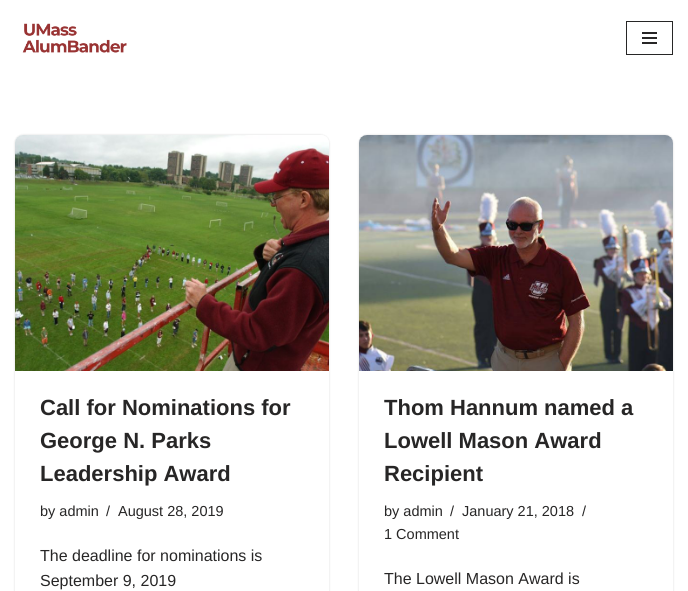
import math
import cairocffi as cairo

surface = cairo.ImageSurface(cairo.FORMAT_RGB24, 688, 591)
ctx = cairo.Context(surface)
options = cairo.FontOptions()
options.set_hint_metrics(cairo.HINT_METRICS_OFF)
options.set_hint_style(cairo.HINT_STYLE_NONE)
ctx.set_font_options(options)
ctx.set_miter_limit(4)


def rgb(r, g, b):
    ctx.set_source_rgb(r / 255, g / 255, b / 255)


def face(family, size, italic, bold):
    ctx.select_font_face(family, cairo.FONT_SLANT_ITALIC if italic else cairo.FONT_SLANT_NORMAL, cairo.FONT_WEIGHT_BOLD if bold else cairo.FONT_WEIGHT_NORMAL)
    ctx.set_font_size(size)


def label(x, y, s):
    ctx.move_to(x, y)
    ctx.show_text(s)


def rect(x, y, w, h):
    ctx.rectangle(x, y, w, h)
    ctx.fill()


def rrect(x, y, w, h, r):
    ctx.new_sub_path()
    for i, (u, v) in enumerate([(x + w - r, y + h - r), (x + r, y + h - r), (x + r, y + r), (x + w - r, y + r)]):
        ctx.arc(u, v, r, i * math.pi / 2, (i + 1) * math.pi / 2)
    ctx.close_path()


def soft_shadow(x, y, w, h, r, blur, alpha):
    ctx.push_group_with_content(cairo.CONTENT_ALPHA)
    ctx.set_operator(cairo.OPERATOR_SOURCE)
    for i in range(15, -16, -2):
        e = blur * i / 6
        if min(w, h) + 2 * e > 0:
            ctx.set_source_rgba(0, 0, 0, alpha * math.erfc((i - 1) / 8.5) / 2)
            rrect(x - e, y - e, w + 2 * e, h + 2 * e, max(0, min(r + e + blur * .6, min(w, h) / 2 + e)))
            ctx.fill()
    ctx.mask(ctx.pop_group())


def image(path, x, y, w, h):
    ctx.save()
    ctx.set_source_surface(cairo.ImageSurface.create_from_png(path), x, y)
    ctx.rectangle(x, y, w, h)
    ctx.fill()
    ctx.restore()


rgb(255, 255, 255)
ctx.paint()
image('image0.png', 22, 23, 105, 30)
ctx.rectangle(626.5, 21.5, 46, 33)
rgb(39, 38, 38)
ctx.set_line_width(1)
ctx.stroke()
rect(642, 32, 15, 2)
rect(642, 37, 15, 2)
rect(642, 42, 15, 2)
rgb(0, 0, 0)
soft_shadow(15, 135, 314, 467, 8, 1, 0.15)
rgb(255, 255, 255)
rrect(15, 135, 314, 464, 8)
ctx.fill()
image('image1.png', 15, 135, 314, 236)
face('Liberation Sans', 22, 0, 1)
rgb(39, 38, 38)
label(40, 415, 'Call for Nominations for')
label(40, 448, 'George N. Parks')
label(40, 481, 'Leadership Award')
face('Liberation Sans', 14.5, 0, 0)
label(40, 516, 'by admin')
label(106, 516, '/')
label(118, 516, 'August 28, 2019')
face('Liberation Sans', 16, 0, 0)
label(40, 561, 'The deadline for nominations is')
label(40, 586, 'September 9, 2019')
rgb(0, 0, 0)
soft_shadow(359, 135, 314, 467, 8, 1, 0.15)
rgb(255, 255, 255)
rrect(359, 135, 314, 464, 8)
ctx.fill()
image('image2.png', 359, 135, 314, 236)
face('Liberation Sans', 22, 0, 1)
rgb(39, 38, 38)
label(384, 415, 'Thom Hannum named a')
label(384, 448, 'Lowell Mason Award')
label(384, 481, 'Recipient')
face('Liberation Sans', 14.5, 0, 0)
label(384, 516, 'by admin')
label(450, 516, '/')
label(462, 516, 'January 21, 2018')
label(582, 516, '/')
label(384, 539, '1 Comment')
face('Liberation Sans', 16, 0, 0)
label(384, 584, 'The Lowell Mason Award is')
surface.write_to_png('render.png')
